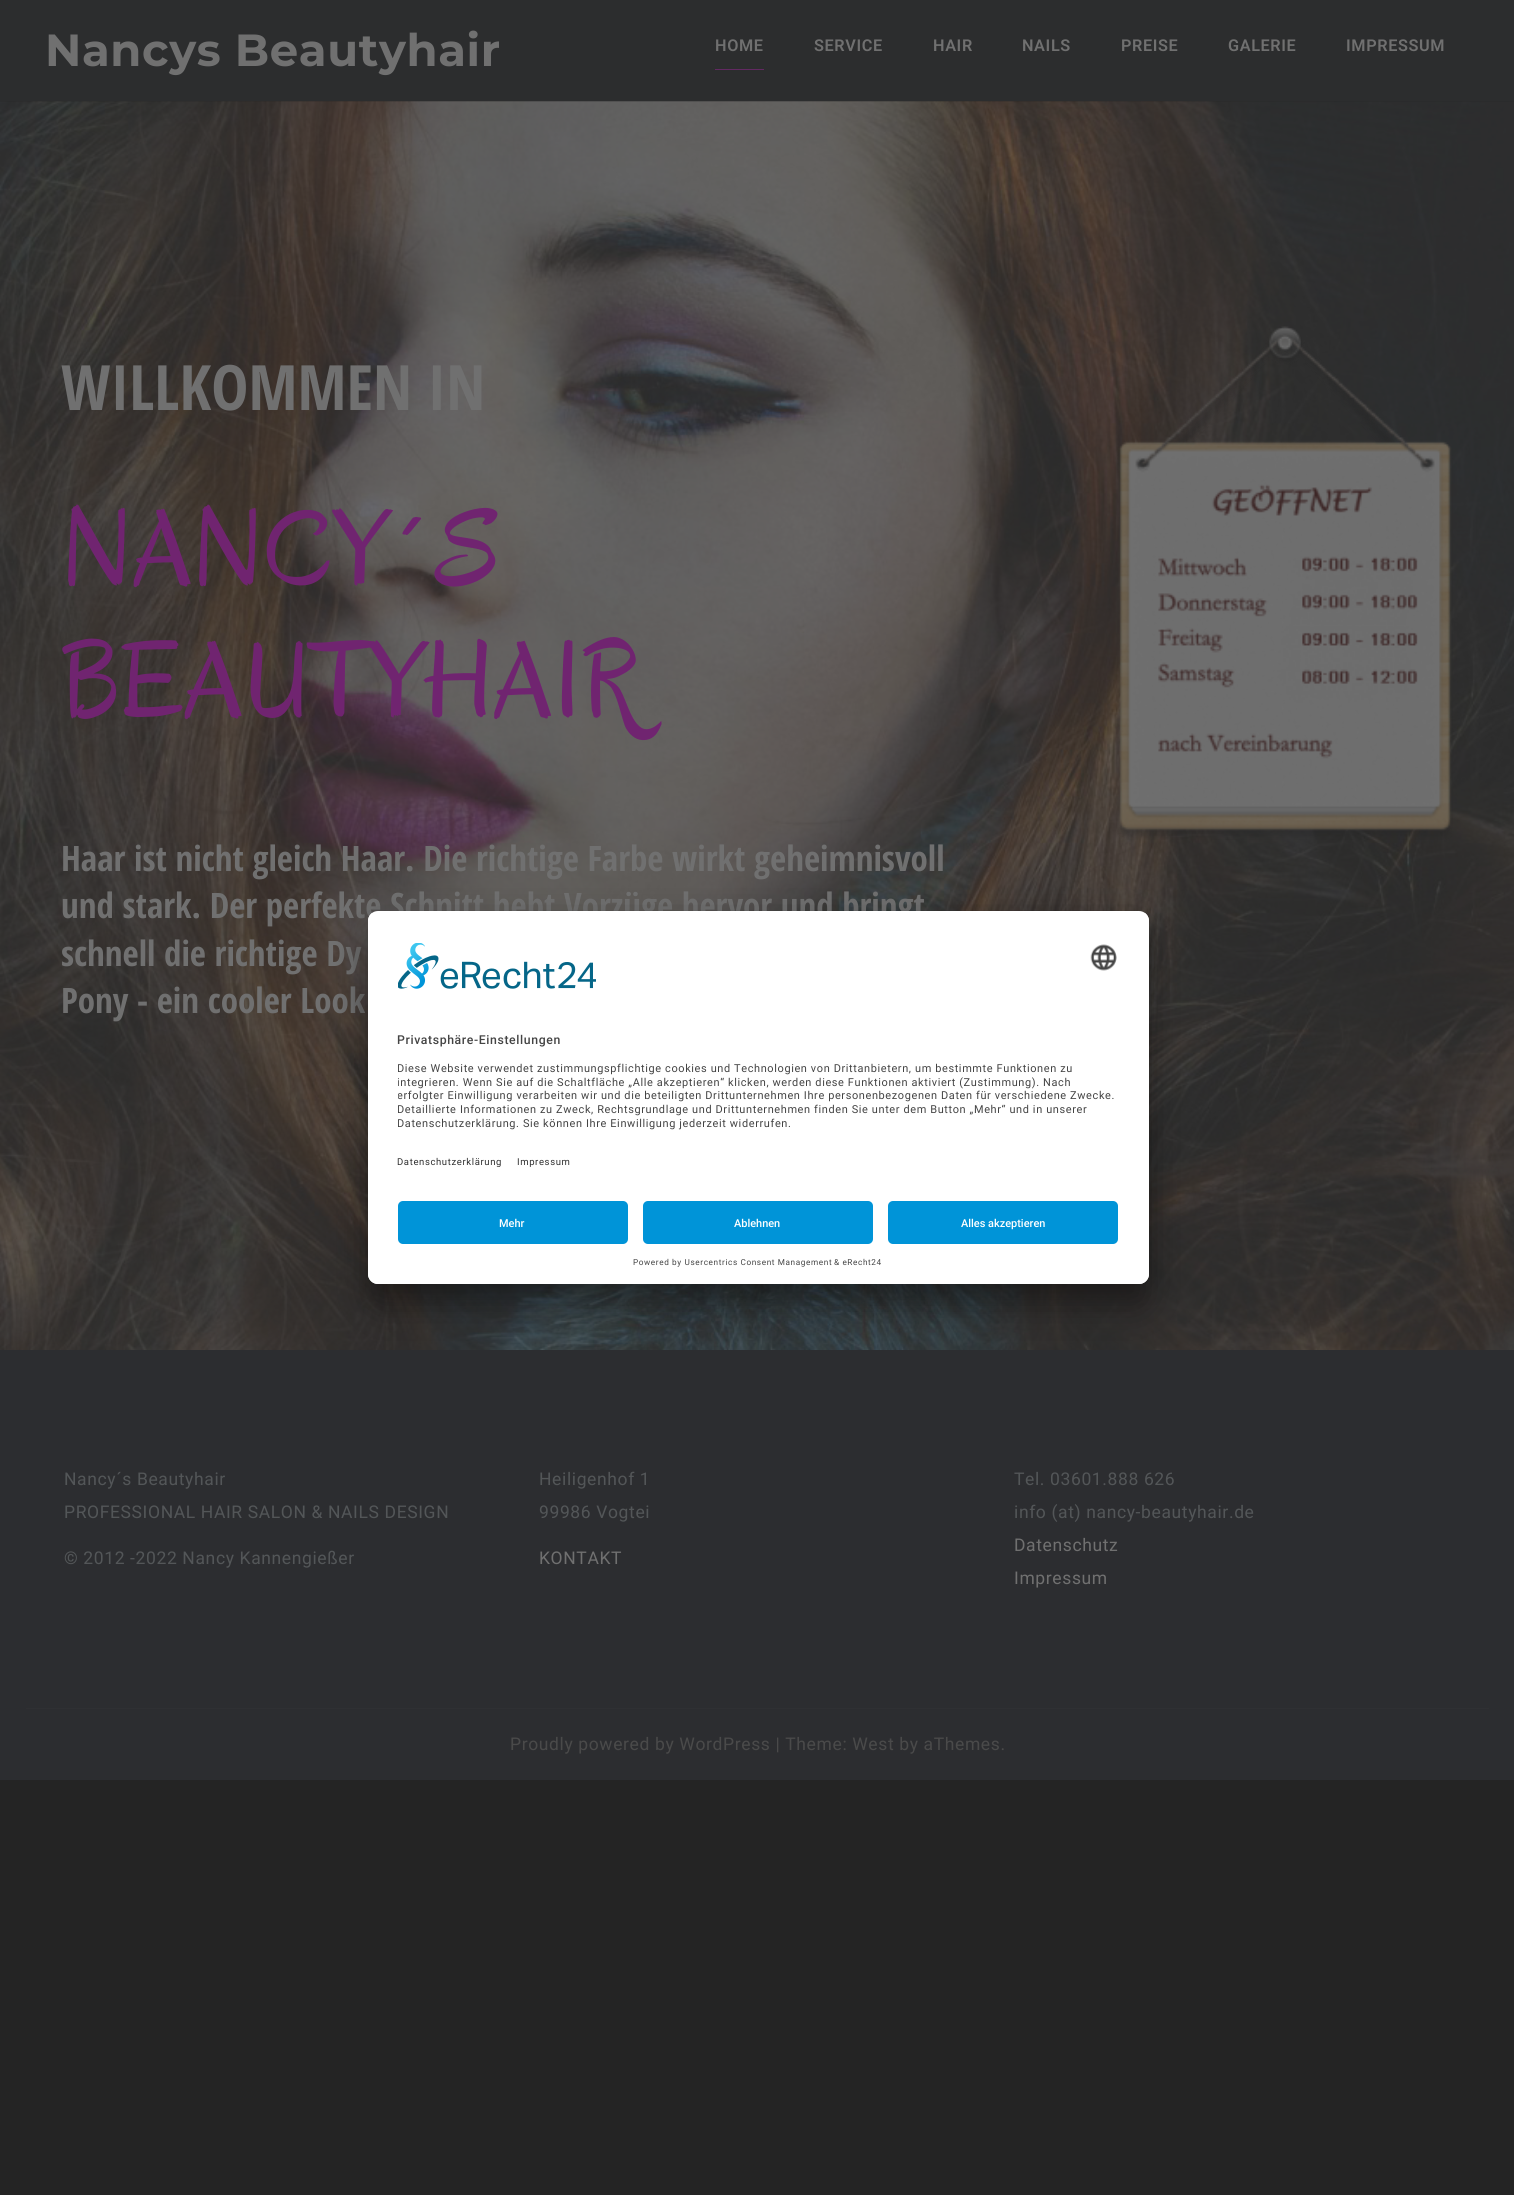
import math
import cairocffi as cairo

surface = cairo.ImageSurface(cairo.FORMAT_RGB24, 1514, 2195)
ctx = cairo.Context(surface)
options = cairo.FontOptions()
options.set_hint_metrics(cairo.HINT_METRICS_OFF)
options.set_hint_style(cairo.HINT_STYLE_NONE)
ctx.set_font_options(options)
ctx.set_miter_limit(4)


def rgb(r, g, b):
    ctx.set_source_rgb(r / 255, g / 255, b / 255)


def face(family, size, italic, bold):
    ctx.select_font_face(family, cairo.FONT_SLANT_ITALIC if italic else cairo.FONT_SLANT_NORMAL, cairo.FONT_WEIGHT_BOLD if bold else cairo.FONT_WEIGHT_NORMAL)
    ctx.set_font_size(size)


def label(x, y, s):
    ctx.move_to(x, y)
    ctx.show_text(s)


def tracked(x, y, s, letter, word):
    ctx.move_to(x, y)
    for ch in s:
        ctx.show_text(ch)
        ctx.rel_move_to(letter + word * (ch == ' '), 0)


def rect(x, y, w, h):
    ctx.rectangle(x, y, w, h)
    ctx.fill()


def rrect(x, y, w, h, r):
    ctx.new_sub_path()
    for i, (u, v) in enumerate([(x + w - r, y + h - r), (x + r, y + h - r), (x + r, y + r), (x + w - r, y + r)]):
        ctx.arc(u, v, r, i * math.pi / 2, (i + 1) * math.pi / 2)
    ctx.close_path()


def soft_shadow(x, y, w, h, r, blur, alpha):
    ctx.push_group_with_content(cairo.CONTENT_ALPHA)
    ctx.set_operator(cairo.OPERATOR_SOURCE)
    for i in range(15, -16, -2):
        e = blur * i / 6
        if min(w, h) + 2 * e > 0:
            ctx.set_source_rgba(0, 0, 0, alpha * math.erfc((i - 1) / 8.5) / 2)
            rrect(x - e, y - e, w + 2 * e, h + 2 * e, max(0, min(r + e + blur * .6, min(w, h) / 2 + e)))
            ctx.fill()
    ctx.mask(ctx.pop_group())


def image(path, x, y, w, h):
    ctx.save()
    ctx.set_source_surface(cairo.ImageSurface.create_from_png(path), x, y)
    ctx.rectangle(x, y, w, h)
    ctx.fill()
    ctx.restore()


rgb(36, 36, 36)
ctx.paint()
rgb(44, 45, 46)
rect(0, 0, 1514, 101)
face('Montserrat', 45, 0, 1)
rgb(112, 112, 112)
tracked(45, 66, 'Nancys Beautyhair', 0.62, 0)
rgb(98, 41, 98)
rect(715, 69, 49, 1)
face('Roboto SemiBold', 16.25, 0, 0)
rgb(112, 112, 112)
tracked(715, 51, 'HOME', 0.62, 0)
tracked(814, 51, 'SERVICE', 0.62, 0)
tracked(933, 51, 'HAIR', 0.62, 0)
tracked(1022, 51, 'NAILS', 0.62, 0)
tracked(1121, 51, 'PREISE', 0.62, 0)
tracked(1228, 51, 'GALERIE', 0.62, 0)
tracked(1346, 51, 'IMPRESSUM', 0.62, 0)
image('image0.png', 0, 101, 1514, 1249)
face('Open Sans Condensed', 62.5, 0, 1)
label(61, 410, 'WILLKOMMEN IN')
face('Oregano', 110, 0, 0)
rgb(112, 36, 112)
label(61, 585, 'NANCY´S')
label(61, 717, 'BEAUTYHAIR')
face('Open Sans Condensed', 35, 0, 1)
rgb(112, 112, 112)
label(61, 871, 'Haar ist nicht gleich Haar. Die richtige Farbe wirkt geheimnisvoll')
label(61, 918, 'und stark. Der perfekte Schnitt hebt Vorzüge hervor und bringt')
label(61, 966, 'schnell die richtige Dy')
label(61, 1013, 'Pony - ein cooler Look')
image('image1.png', 1115, 326, 338, 514)
rgb(44, 45, 48)
rect(0, 1350, 1514, 430)
face('Roboto', 17.5, 0, 0)
rgb(83, 86, 88)
tracked(64, 1485, 'Nancy´s Beautyhair', 0.62, 0)
tracked(64, 1518, 'PROFESSIONAL HAIR SALON & NAILS DESIGN', 0.62, 0)
tracked(64, 1564, '© 2012 -2022 Nancy Kannengießer', 0.62, 0)
tracked(539, 1485, 'Heiligenhof 1', 0.62, 0)
tracked(539, 1518, '99986 Vogtei', 0.62, 0)
rgb(112, 112, 112)
tracked(539, 1564, 'KONTAKT', 0.62, 0)
rgb(83, 86, 88)
tracked(1014, 1485, 'Tel. 03601.888 626', 0.62, 0)
tracked(1014, 1518, 'info (at) nancy-beautyhair.de', 0.62, 0)
rgb(112, 112, 112)
tracked(1014, 1551, 'Datenschutz', 0.62, 0)
tracked(1014, 1584, 'Impressum', 0.62, 0)
rgb(47, 48, 51)
rect(26, 1708, 1463, 1)
rgb(74, 74, 74)
tracked(510, 1750, 'Proudly powered by WordPress | Theme: West by aThemes.', 0.62, 0)
rgb(0, 0, 0)
soft_shadow(368, 936, 781, 373, 10, 17.5, 0.3)
soft_shadow(368, 918, 781, 372, 10, 16, 0.22)
rgb(255, 255, 255)
rrect(368, 911, 781, 373, 10)
ctx.fill()
ctx.save()
rrect(368, 911, 781, 373, 10)
ctx.clip()
ctx.new_path()
ctx.move_to(378, 911)
ctx.line_to(1139, 911)
ctx.curve_to(1144.5, 911, 1149, 915.5, 1149, 921)
ctx.line_to(1149, 1191)
ctx.line_to(368, 1191)
ctx.line_to(368, 921)
ctx.curve_to(368, 915.5, 372.5, 911, 378, 911)
ctx.close_path()
ctx.clip()
rect(368, 913, 781, 278)
ctx.restore()
image('image2.png', 398, 943, 198, 46)
image('image3.png', 1090, 944, 27, 27)
face('Roboto Medium', 12.25, 0, 0)
rgb(68, 68, 68)
tracked(397, 1044, 'Privatsphäre-Einstellungen', 0.62, 0)
ctx.save()
ctx.rectangle(398, 1056, 721, 79)
ctx.clip()
face('Roboto', 10.95, 0, 0)
tracked(397, 1072, 'Diese Website verwendet zustimmungspflichtige cookies und Technologien von Drittanbietern, um bestimmte Funktionen zu', 0.62, 0)
tracked(397, 1086, 'integrieren. Wenn Sie auf die Schaltfläche „Alle akzeptieren“ klicken, werden diese Funktionen aktiviert (Zustimmung). Nach', 0.62, 0)
tracked(397, 1099, 'erfolgter Einwilligung verarbeiten wir und die beteiligten Drittunternehmen Ihre personenbezogenen Daten für verschiedene Zwecke.', 0.62, 0)
tracked(397, 1113, 'Detaillierte Informationen zu Zweck, Rechtsgrundlage und Drittunternehmen finden Sie unter dem Button „Mehr“ und in unserer', 0.62, 0)
tracked(397, 1127, 'Datenschutzerklärung. Sie können Ihre Einwilligung jederzeit widerrufen.', 0.62, 0)
ctx.restore()
face('Roboto', 9.5, 0, 0)
rgb(48, 48, 48)
tracked(397, 1165, 'Datenschutzerklärung', 0.62, 0)
tracked(517, 1165, 'Impressum', 0.62, 0)
rgb(255, 255, 255)
ctx.new_path()
ctx.move_to(368, 1191)
ctx.line_to(1149, 1191)
ctx.line_to(1149, 1274)
ctx.curve_to(1149, 1279.5, 1144.5, 1284, 1139, 1284)
ctx.line_to(378, 1284)
ctx.curve_to(372.5, 1284, 368, 1279.5, 368, 1274)
ctx.close_path()
ctx.fill()
rgb(0, 148, 216)
rrect(398, 1201, 230, 43, 5)
ctx.fill()
face('Roboto Medium', 10.95, 0, 0)
rgb(255, 255, 255)
label(499, 1227, 'Mehr')
rgb(0, 148, 216)
rrect(643, 1201, 230, 43, 5)
ctx.fill()
rgb(255, 255, 255)
label(734, 1227, 'Ablehnen')
rgb(0, 148, 216)
rrect(888, 1201, 230, 43, 5)
ctx.fill()
rgb(255, 255, 255)
label(961, 1227, 'Alles akzeptieren')
face('Roboto', 8.2, 0, 0)
rgb(68, 68, 68)
tracked(633, 1265, 'Powered by Usercentrics Consent Management', 0.62, 0)
tracked(834, 1265, '& eRecht24', 0.62, 0)
surface.write_to_png('render.png')
